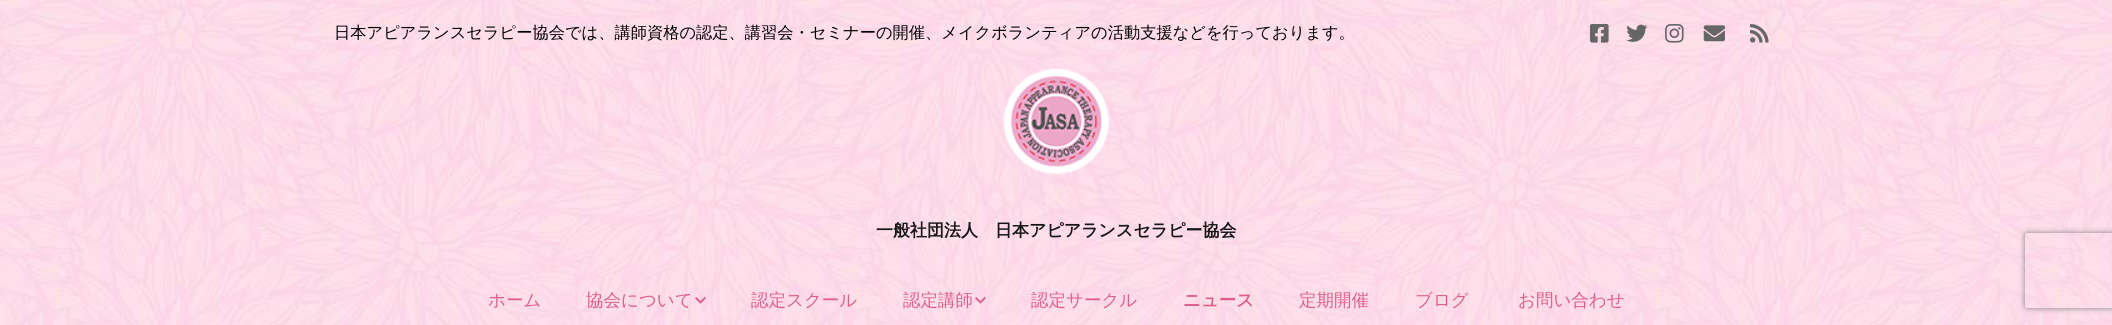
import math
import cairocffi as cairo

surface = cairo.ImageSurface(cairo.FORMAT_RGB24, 2112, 325)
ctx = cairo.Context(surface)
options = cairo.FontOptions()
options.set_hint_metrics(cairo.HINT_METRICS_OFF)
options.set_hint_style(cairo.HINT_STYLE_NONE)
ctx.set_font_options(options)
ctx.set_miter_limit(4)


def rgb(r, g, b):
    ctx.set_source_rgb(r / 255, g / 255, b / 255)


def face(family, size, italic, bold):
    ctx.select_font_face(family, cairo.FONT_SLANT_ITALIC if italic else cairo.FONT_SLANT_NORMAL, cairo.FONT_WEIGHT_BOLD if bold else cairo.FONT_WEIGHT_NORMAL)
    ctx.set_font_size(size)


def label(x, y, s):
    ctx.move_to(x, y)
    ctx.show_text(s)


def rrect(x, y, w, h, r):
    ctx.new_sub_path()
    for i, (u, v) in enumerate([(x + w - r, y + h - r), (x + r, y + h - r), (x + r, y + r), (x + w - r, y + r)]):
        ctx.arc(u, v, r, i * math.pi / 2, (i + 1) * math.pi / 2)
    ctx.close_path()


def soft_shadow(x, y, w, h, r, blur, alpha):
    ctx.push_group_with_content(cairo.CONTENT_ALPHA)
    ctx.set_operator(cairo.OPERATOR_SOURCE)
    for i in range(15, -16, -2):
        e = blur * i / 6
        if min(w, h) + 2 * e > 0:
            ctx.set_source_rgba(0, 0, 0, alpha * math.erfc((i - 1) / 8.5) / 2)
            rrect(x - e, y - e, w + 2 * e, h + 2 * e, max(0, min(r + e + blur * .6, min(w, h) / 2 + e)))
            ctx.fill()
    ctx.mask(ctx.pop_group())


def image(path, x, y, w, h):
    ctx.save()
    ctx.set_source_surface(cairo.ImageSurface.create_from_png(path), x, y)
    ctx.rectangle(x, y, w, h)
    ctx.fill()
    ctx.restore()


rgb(255, 255, 255)
ctx.paint()
image('image0.png', 0, 0, 2112, 325)
face('WenQuanYi Zen Hei Medium', 16.25, 0, 0)
rgb(0, 0, 0)
label(334, 38, '日本アピアランスセラピー協会では、講師資格の認定、講習会・セミナーの開催、メイクボランティアの活動支援などを行っております。')
image('image1.png', 1590, 24, 19, 19)
image('image2.png', 1626, 24, 22, 18)
image('image3.png', 1665, 24, 19, 19)
image('image4.png', 1703, 25, 22, 17)
image('image5.png', 1750, 24, 19, 19)
image('image6.png', 1003, 68, 106, 106)
face('WenQuanYi Zen Hei', 17, 0, 1)
rgb(23, 23, 23)
label(876, 236, '一般社団法人　日本アピアランスセラピー協会')
face('WenQuanYi Zen Hei Medium', 17.5, 0, 0)
rgb(221, 95, 137)
label(488, 306, 'ホーム')
label(586, 306, '協会について')
image('image7.png', 695, 297, 11, 7)
label(751, 306, '認定スクール')
label(903, 306, '認定講師')
image('image8.png', 975, 297, 11, 7)
label(1031, 306, '認定サークル')
face('WenQuanYi Zen Hei', 17.5, 0, 1)
label(1183, 306, 'ニュース')
face('WenQuanYi Zen Hei Medium', 17.5, 0, 0)
label(1299, 306, '定期開催')
label(1415, 306, 'ブログ')
label(1518, 306, 'お問い合わせ')
ctx.save()
ctx.set_fill_rule(cairo.FILL_RULE_EVEN_ODD)
ctx.new_path()
ctx.move_to(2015, 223)
ctx.line_to(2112, 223)
ctx.line_to(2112, 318)
ctx.line_to(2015, 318)
ctx.close_path()
ctx.move_to(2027.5, 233)
ctx.line_to(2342.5, 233)
ctx.curve_to(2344, 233, 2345, 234, 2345, 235.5)
ctx.line_to(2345, 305.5)
ctx.curve_to(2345, 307, 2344, 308, 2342.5, 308)
ctx.line_to(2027.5, 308)
ctx.curve_to(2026, 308, 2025, 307, 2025, 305.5)
ctx.line_to(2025, 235.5)
ctx.curve_to(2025, 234, 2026, 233, 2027.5, 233)
ctx.close_path()
ctx.clip()
rgb(128, 128, 128)
soft_shadow(2025, 233, 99, 75, 2.5, 3, 1)
ctx.restore()
surface.write_to_png('render.png')
